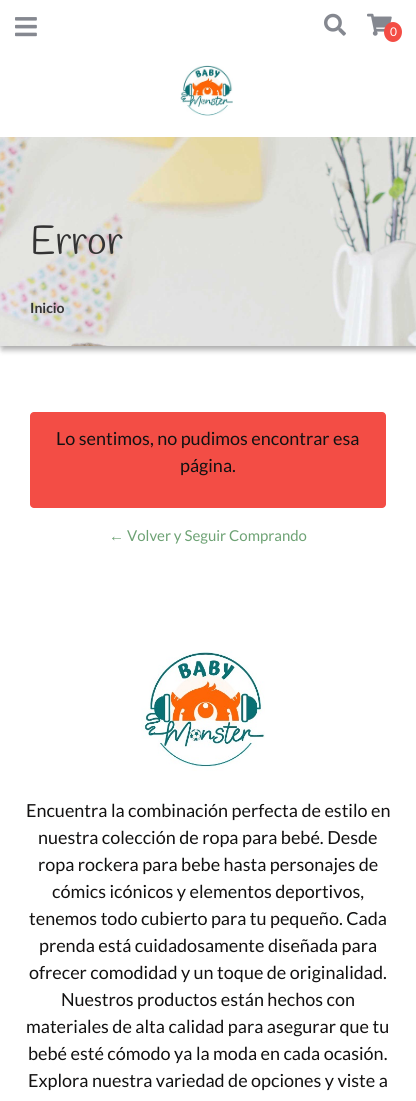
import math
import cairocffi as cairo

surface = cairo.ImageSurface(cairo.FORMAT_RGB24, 416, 1101)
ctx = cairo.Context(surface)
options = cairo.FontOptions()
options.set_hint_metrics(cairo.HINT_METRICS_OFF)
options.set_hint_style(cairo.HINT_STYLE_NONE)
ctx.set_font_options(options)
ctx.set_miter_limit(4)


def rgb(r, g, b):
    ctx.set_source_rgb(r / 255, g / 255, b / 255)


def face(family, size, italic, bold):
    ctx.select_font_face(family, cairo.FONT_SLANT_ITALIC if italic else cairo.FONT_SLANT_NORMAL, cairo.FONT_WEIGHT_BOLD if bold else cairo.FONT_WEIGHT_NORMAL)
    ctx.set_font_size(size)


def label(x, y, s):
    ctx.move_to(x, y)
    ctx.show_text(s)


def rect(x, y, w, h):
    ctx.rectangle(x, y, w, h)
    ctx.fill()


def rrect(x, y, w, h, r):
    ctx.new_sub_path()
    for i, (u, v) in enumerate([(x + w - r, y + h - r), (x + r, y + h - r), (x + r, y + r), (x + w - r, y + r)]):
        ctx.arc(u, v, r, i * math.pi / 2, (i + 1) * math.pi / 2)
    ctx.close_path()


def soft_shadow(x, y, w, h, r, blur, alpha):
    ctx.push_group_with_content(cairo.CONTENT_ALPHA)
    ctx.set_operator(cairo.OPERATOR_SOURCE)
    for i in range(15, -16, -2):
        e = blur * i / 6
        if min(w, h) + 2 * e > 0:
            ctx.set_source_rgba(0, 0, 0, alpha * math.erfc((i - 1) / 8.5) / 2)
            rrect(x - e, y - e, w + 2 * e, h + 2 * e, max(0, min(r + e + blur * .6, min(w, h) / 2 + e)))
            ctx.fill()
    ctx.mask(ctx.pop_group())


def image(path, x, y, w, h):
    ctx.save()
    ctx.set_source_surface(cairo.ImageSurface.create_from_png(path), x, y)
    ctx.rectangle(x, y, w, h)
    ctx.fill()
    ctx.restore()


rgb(255, 255, 255)
ctx.paint()
rgb(0, 0, 0)
soft_shadow(0, 1, 416, 346, 0, 3, 0.23)
soft_shadow(2, 5, 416, 346, 0, 2.5, 0.19)
rgb(255, 255, 255)
rect(0, 0, 416, 137)
image('image0.png', 15, 17, 22, 20)
image('image1.png', 324, 13, 22, 23)
image('image2.png', 367, 13, 25, 23)
rgb(243, 77, 69)
ctx.new_path()
ctx.move_to(393, 22)
ctx.curve_to(398, 22, 402, 26.5, 402, 32)
ctx.curve_to(402, 37.5, 398, 42, 393, 42)
ctx.curve_to(388, 42, 384, 37.5, 384, 32)
ctx.curve_to(384, 26.5, 388, 22, 393, 22)
ctx.close_path()
ctx.fill()
face('Lato', 12, 0, 0)
rgb(255, 255, 255)
label(390, 36, '0')
image('image3.png', 180, 65, 53, 51)
image('image4.png', 0, 137, 416, 209)
face('Handlee', 40, 0, 0)
rgb(51, 51, 51)
label(30, 254, 'Error')
face('Lato', 14, 0, 1)
label(30, 313, 'Inicio')
rgb(243, 77, 69)
rrect(30, 412, 356, 96, 4)
ctx.fill()
face('Lato', 18, 0, 0)
rgb(18, 17, 17)
label(56, 445, 'Lo sentimos, no pudimos encontrar esa')
label(180, 472, 'página.')
face('Liberation Serif', 15, 0, 0)
rgb(109, 162, 116)
label(109, 541, '←')
face('Lato', 15, 0, 0)
label(127, 541, 'Volver y Seguir Comprando')
image('image5.png', 141, 650, 124, 121)
face('Lato', 18, 0, 0)
rgb(18, 17, 17)
label(26, 817, 'Encuentra la combinación perfecta de estilo en')
label(38, 844, 'nuestra colección de ropa para bebé. Desde')
label(38, 871, 'ropa rockera para bebe hasta personajes de')
label(52, 898, 'cómics icónicos y elementos deportivos,')
label(29, 925, 'tenemos todo cubierto para tu pequeño. Cada')
label(39, 952, 'prenda está cuidadosamente diseñada para')
label(29, 979, 'ofrecer comodidad y un toque de originalidad.')
label(61, 1006, 'Nuestros productos están hechos con')
label(26, 1033, 'materiales de alta calidad para asegurar que tu')
label(28, 1060, 'bebé esté cómodo ya la moda en cada ocasión.')
label(28, 1087, 'Explora nuestra variedad de opciones y viste a')
surface.write_to_png('render.png')
